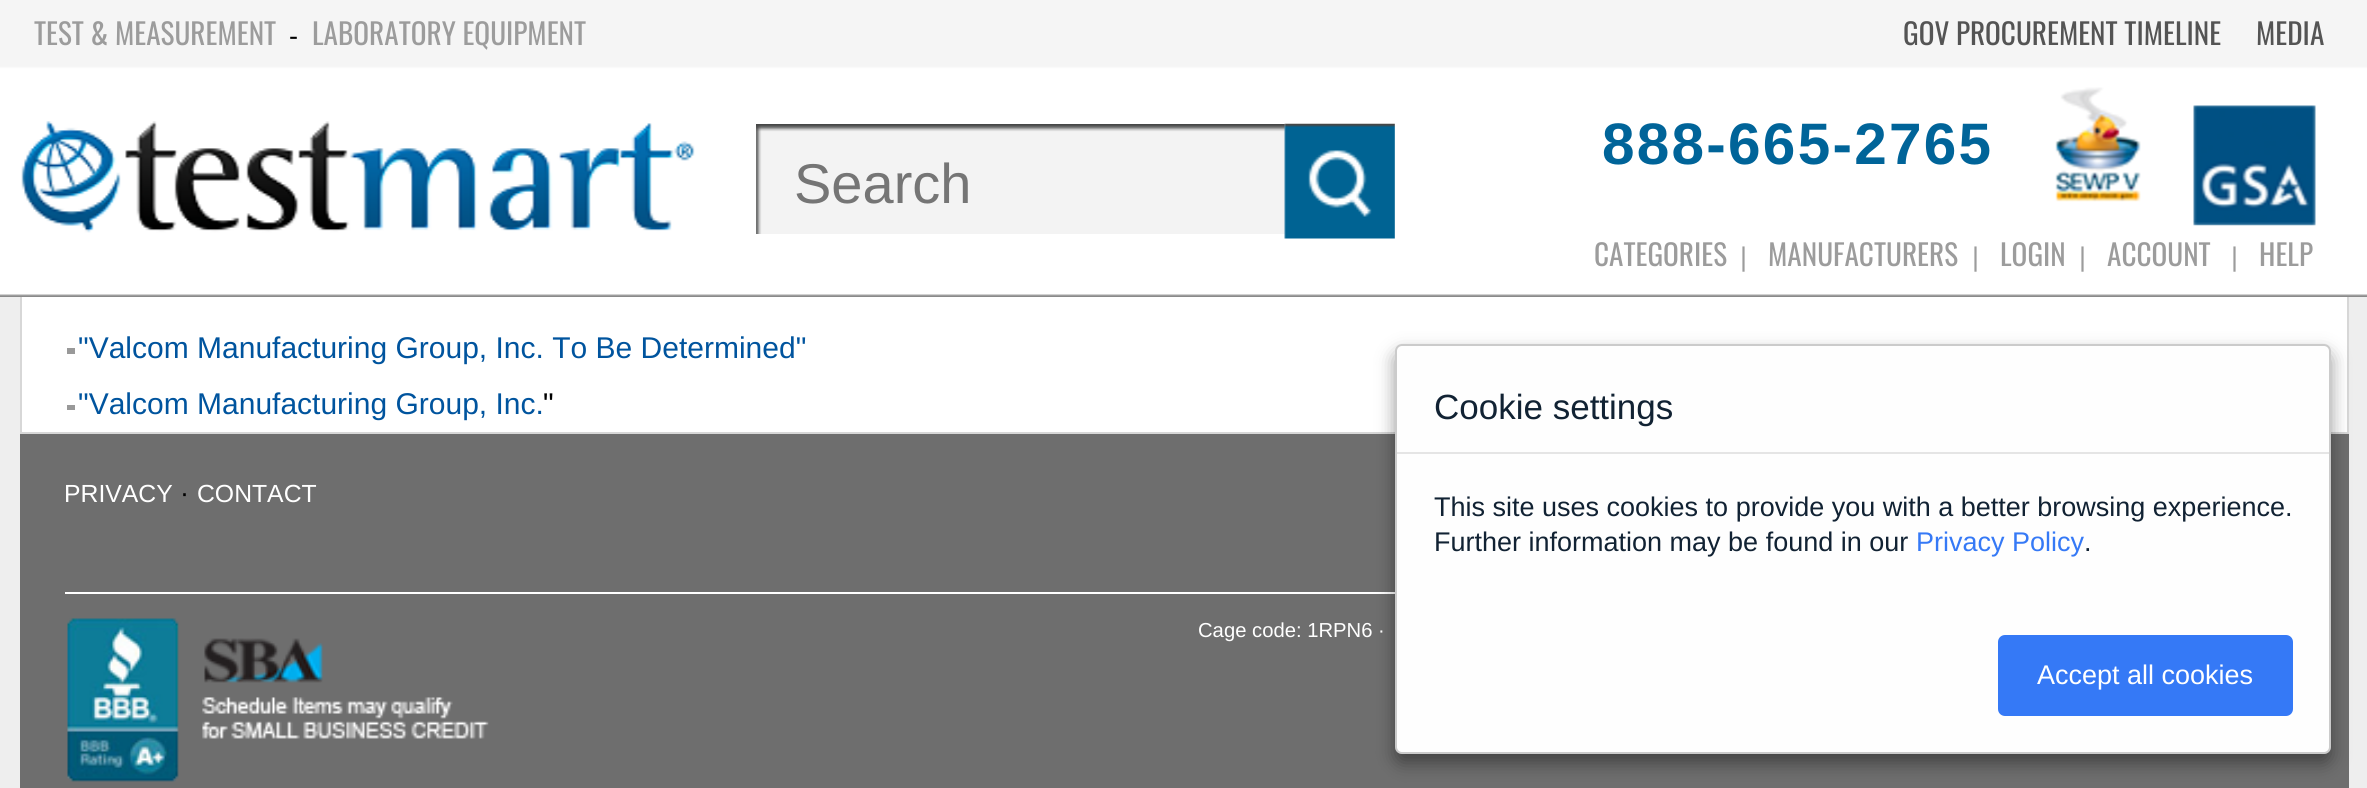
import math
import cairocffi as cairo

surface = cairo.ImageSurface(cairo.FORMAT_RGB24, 2367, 788)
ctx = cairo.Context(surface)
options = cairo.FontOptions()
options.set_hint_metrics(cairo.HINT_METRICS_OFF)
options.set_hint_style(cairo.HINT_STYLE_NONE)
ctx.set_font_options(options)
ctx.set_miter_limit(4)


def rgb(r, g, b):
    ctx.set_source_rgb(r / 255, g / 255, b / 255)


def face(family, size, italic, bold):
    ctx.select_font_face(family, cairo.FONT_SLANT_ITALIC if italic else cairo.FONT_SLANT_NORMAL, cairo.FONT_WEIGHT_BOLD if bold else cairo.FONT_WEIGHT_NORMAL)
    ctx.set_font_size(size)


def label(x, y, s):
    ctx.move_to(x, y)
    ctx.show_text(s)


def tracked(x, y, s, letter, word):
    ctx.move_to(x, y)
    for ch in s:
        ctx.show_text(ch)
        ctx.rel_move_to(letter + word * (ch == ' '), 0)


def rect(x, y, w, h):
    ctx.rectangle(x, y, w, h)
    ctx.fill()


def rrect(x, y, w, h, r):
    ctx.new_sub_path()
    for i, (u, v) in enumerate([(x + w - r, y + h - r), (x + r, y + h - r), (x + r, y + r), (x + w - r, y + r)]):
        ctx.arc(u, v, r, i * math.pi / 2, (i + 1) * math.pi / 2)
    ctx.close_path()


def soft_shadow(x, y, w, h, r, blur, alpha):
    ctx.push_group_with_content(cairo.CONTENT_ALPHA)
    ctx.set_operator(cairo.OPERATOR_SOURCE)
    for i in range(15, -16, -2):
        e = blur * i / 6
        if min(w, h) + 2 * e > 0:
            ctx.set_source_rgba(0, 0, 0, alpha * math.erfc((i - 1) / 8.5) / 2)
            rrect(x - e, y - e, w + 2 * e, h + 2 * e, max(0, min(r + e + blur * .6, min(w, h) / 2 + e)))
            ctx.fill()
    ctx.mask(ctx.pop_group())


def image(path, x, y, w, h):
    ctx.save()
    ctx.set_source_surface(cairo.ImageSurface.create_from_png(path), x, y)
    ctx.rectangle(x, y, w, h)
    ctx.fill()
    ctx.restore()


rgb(238, 238, 238)
ctx.paint()
rgb(255, 255, 255)
rect(22, 297, 2325, 135)
ctx.rectangle(21, -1, 2327, 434)
rgb(215, 215, 215)
ctx.stroke()
image('image0.png', 0, 0, 2367, 297)
face('Oswald', 29.25, 0, 0)
rgb(156, 156, 156)
label(34, 45, 'TEST & MEASUREMENT')
face('Liberation Sans', 27, 0, 0)
rgb(0, 0, 0)
label(289, 45, '-')
face('Oswald', 29.25, 0, 0)
rgb(156, 156, 156)
label(312, 45, 'LABORATORY EQUIPMENT')
rgb(84, 84, 84)
label(1903, 45, 'GOV PROCUREMENT TIMELINE')
label(2256, 45, 'MEDIA')
image('image1.png', 21, 121, 674, 112)
image('image2.png', 756, 124, 529, 110)
face('Liberation Sans', 56, 0, 0)
rgb(117, 117, 117)
label(794, 203, 'Search')
image('image3.png', 1284, 123, 111, 116)
face('Liberation Sans', 58.5, 0, 1)
rgb(0, 100, 153)
tracked(1602, 164, '888-665-2765', 2.25, 0)
image('image4.png', 2055, 87, 86, 115)
image('image5.png', 2193, 105, 123, 121)
face('Oswald', 29.25, 0, 0)
rgb(156, 156, 156)
label(1594, 266, 'CATEGORIES')
face('Liberation Sans', 27, 0, 0)
label(1740, 266, '|')
face('Oswald', 29.25, 0, 0)
label(1768, 266, 'MANUFACTURERS')
face('Liberation Sans', 27, 0, 0)
label(1972, 266, '|')
face('Oswald', 29.25, 0, 0)
label(2000, 266, 'LOGIN')
face('Liberation Sans', 27, 0, 0)
label(2079, 266, '|')
face('Oswald', 29.25, 0, 0)
label(2107, 266, 'ACCOUNT')
face('Liberation Sans', 27, 0, 0)
label(2231, 266, '|')
face('Oswald', 29.25, 0, 0)
label(2259, 266, 'HELP')
rgb(153, 153, 153)
rect(67, 348, 8, 6)
face('Liberation Sans', 30, 0, 0)
rgb(0, 84, 158)
label(78, 358, '"Valcom Manufacturing Group, Inc. To Be Determined"')
rgb(153, 153, 153)
rect(67, 405, 8, 5)
rgb(0, 84, 158)
label(78, 414, '"Valcom Manufacturing Group, Inc.')
rgb(0, 0, 0)
label(543, 414, '"')
rgb(110, 110, 110)
rect(20, 434, 2329, 354)
rgb(255, 255, 255)
rect(65, 592, 1330, 2)
face('Liberation Sans', 24.75, 0, 0)
label(64, 502, 'PRIVACY')
face('Liberation Sans', 27, 0, 0)
rgb(0, 0, 0)
label(180, 502, '·')
face('Liberation Sans', 24.75, 0, 0)
rgb(255, 255, 255)
label(197, 502, 'CONTACT')
image('image6.png', 67, 618, 422, 164)
face('Liberation Sans', 20.25, 0, 0)
label(1198, 637, 'Cage code: 1RPN6 ·')
rgb(0, 0, 0)
soft_shadow(1395, 353, 936, 410, 7, 9, 0.4)
rgb(254, 254, 254)
rrect(1395, 344, 936, 410, 7)
ctx.fill()
rrect(1396, 345, 934, 408, 6)
ctx.set_source_rgba(0, 0, 0, 0.2)
ctx.stroke()
rgb(229, 229, 229)
rect(1397, 452, 932, 2)
face('Liberation Sans', 35, 0, 0)
rgb(17, 34, 51)
label(1434, 419, 'Cookie settings')
face('Liberation Sans', 27, 0, 0)
label(1434, 516, 'This site uses cookies to provide you with a better browsing experience.')
label(1434, 551, 'Further information may be found in our')
rgb(53, 121, 246)
label(1916, 551, 'Privacy Policy')
rgb(17, 34, 51)
label(2084, 551, '.')
rgb(53, 121, 246)
rrect(1998, 635, 295, 81, 7)
ctx.fill()
rgb(255, 255, 255)
label(2037, 684, 'Accept all cookies')
surface.write_to_png('render.png')
